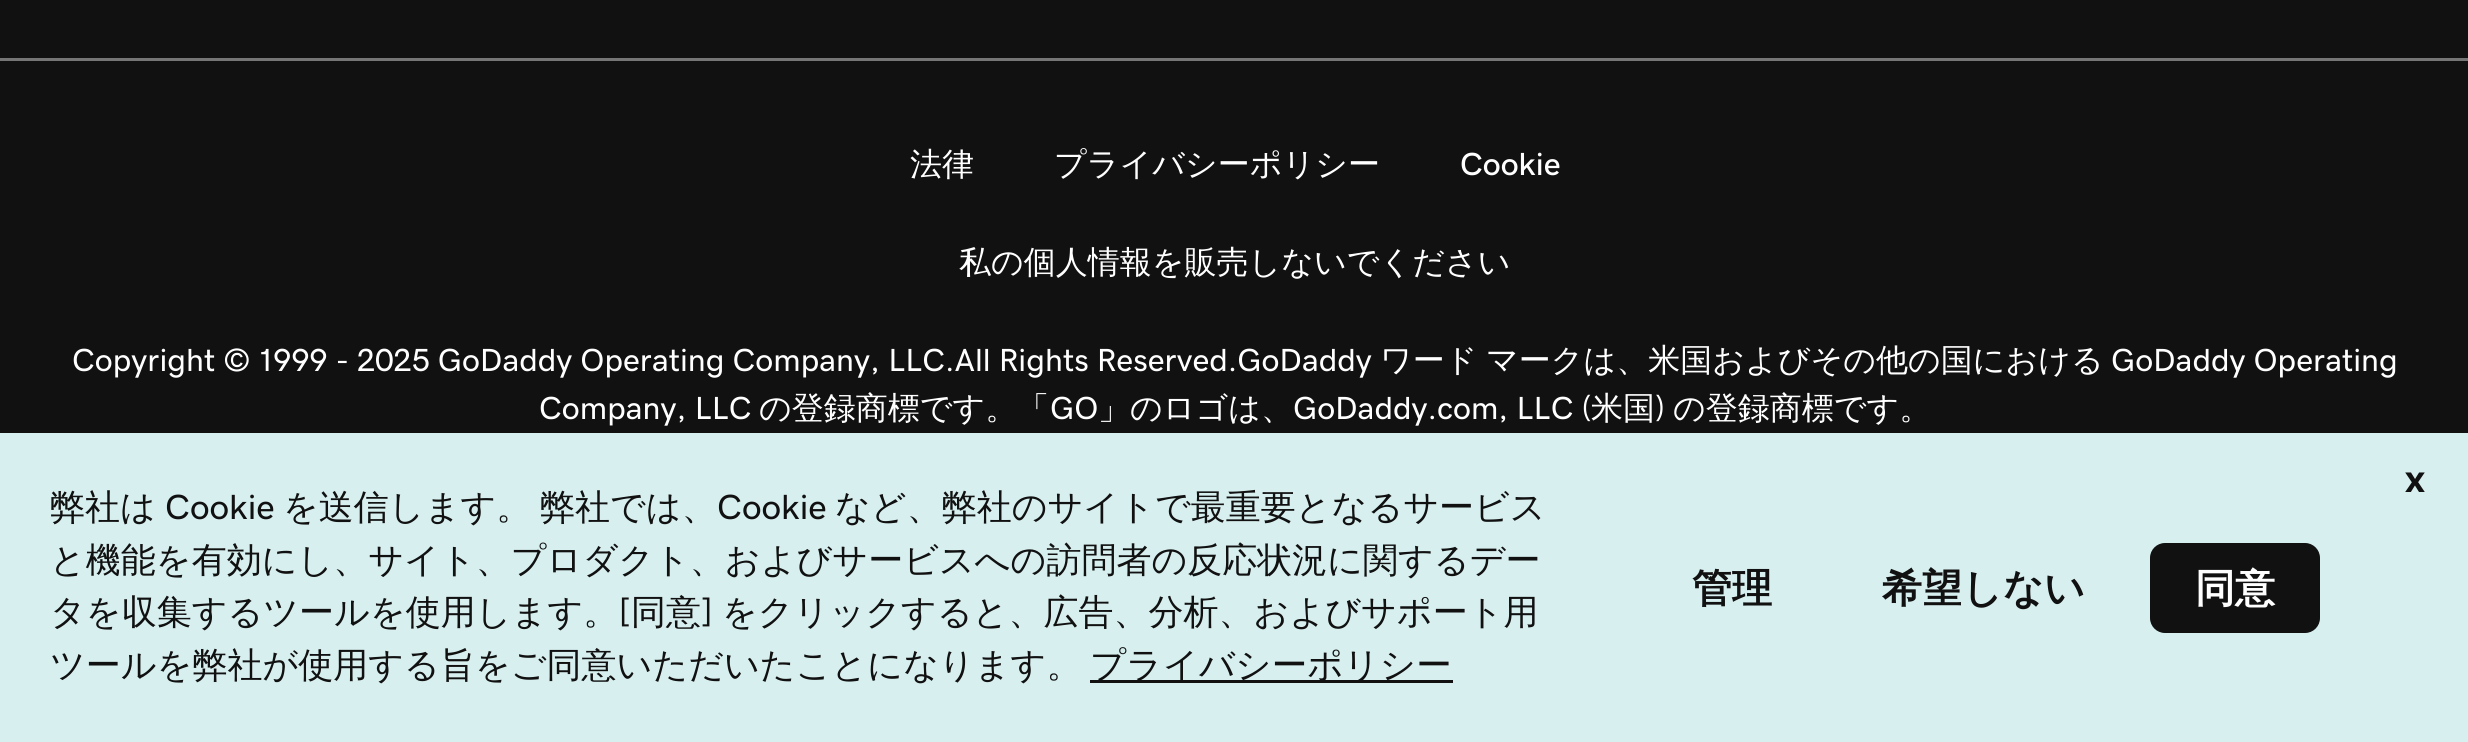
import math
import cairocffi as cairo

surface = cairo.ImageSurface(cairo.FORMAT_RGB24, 2468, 742)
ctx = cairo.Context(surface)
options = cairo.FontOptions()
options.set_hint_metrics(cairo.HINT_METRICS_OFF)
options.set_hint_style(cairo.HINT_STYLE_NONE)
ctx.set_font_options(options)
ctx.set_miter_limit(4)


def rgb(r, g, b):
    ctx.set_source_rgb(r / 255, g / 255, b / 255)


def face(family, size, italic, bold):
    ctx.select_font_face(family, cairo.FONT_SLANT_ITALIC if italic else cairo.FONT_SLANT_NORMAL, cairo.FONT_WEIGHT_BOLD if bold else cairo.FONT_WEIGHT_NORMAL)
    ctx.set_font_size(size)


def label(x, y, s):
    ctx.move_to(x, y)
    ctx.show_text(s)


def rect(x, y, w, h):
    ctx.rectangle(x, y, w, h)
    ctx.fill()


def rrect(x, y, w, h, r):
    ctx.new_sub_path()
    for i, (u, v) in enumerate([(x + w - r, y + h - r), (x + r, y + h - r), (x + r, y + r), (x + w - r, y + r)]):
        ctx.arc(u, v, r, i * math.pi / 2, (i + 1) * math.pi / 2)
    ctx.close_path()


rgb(17, 17, 17)
ctx.paint()
rgb(118, 118, 118)
rect(0, 58, 2468, 3)
face('WenQuanYi Zen Hei Medium', 32, 0, 0)
rgb(255, 255, 255)
label(910, 175, '法律')
label(1054, 175, 'プライバシーポリシー')
face('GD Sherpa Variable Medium', 32, 0, 0)
label(1460, 175, 'Cookie')
face('WenQuanYi Zen Hei Medium', 32, 0, 0)
label(959, 273, '私の個人情報を販売しないでください')
face('GD Sherpa Variable', 32, 0, 0)
label(72, 371, 'Copyright © 1999 - 2025 GoDaddy Operating Company, LLC.All Rights Reserved.GoDaddy')
face('WenQuanYi Zen Hei Medium', 32, 0, 0)
label(1380, 371, 'ワード')
label(1486, 371, 'マークは、米国およびその他の国における')
face('GD Sherpa Variable', 32, 0, 0)
label(2111, 371, 'GoDaddy Operating')
label(539, 419, 'Company, LLC')
face('WenQuanYi Zen Hei Medium', 32, 0, 0)
label(759, 419, 'の登録商標です。「')
face('GD Sherpa Variable', 32, 0, 0)
label(1050, 419, 'GO')
face('WenQuanYi Zen Hei Medium', 32, 0, 0)
label(1098, 419, '」のロゴは、')
face('GD Sherpa Variable', 32, 0, 0)
label(1293, 419, 'GoDaddy.com, LLC (')
face('WenQuanYi Zen Hei Medium', 32, 0, 0)
label(1591, 419, '米国')
face('GD Sherpa Variable', 32, 0, 0)
label(1655, 419, ')')
face('WenQuanYi Zen Hei Medium', 32, 0, 0)
label(1673, 419, 'の登録商標です。')
rgb(216, 239, 239)
rect(0, 433, 2468, 309)
face('GD Sherpa Variable', 40, 0, 1)
rgb(17, 17, 17)
label(2405, 492, 'x')
face('WenQuanYi Zen Hei Medium', 35, 0, 0)
label(50, 519, '弊社は')
face('GD Sherpa Variable', 35, 0, 0)
label(165, 519, 'Cookie')
face('WenQuanYi Zen Hei Medium', 35, 0, 0)
label(283, 519, 'を送信します。')
label(540, 519, '弊社では、')
face('GD Sherpa Variable', 35, 0, 0)
label(717, 519, 'Cookie')
face('WenQuanYi Zen Hei Medium', 35, 0, 0)
label(835, 519, 'など、弊社のサイトで最重要となるサービス')
label(50, 572, 'と機能を有効にし、サイト、プロダクト、およびサービスへの訪問者の反応状況に関するデー')
label(50, 624, 'タを収集するツールを使用します。')
face('GD Sherpa Variable', 35, 0, 0)
label(618, 624, '[')
face('WenQuanYi Zen Hei Medium', 35, 0, 0)
label(631, 624, '同意')
face('GD Sherpa Variable', 35, 0, 0)
label(701, 624, ']')
face('WenQuanYi Zen Hei Medium', 35, 0, 0)
label(722, 624, 'をクリックすると、広告、分析、およびサポート用')
label(50, 677, 'ツールを弊社が使用する旨をご同意いただいたことになります。')
rect(1090, 680, 363, 3)
face('WenQuanYi Zen Hei Medium', 35.5, 0, 0)
label(1090, 677, 'プライバシーポリシー')
face('WenQuanYi Zen Hei', 40, 0, 1)
label(1692, 602, '管理')
label(1882, 602, '希望しない')
rrect(2150, 543, 170, 90, 15)
ctx.fill()
rgb(255, 255, 255)
label(2195, 602, '同意')
surface.write_to_png('render.png')
